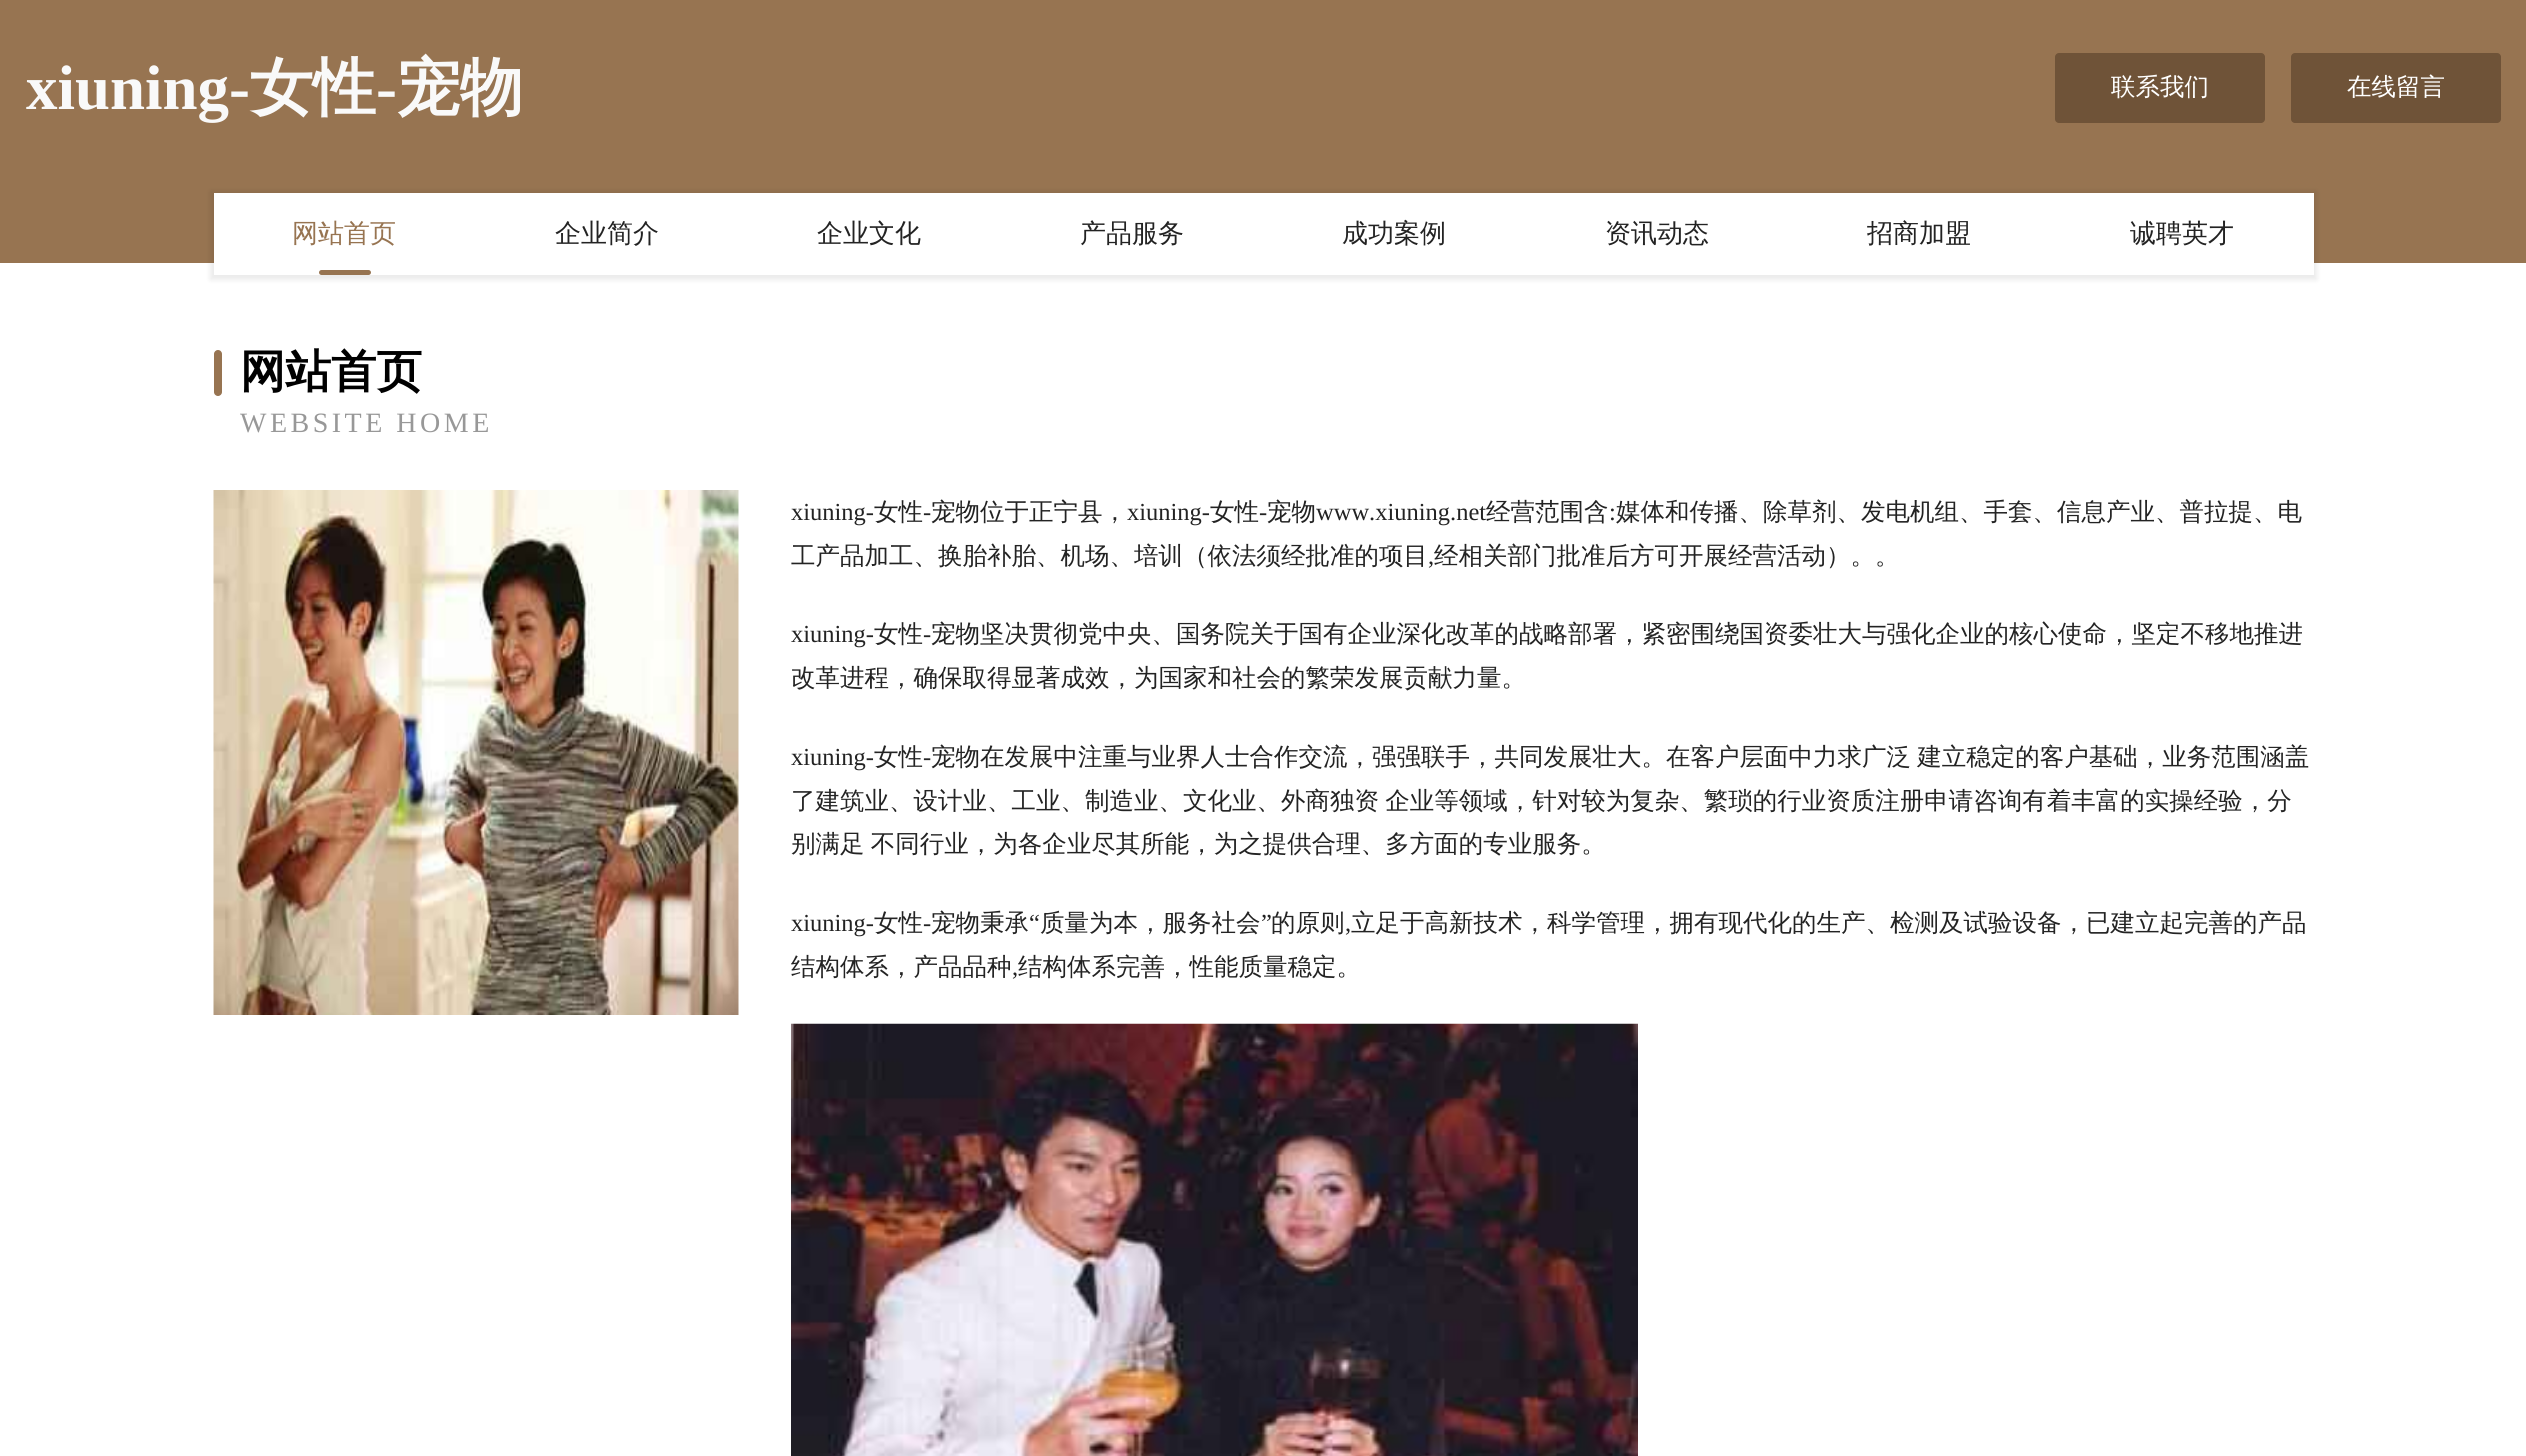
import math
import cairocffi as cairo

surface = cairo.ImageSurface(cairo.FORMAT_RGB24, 2526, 1456)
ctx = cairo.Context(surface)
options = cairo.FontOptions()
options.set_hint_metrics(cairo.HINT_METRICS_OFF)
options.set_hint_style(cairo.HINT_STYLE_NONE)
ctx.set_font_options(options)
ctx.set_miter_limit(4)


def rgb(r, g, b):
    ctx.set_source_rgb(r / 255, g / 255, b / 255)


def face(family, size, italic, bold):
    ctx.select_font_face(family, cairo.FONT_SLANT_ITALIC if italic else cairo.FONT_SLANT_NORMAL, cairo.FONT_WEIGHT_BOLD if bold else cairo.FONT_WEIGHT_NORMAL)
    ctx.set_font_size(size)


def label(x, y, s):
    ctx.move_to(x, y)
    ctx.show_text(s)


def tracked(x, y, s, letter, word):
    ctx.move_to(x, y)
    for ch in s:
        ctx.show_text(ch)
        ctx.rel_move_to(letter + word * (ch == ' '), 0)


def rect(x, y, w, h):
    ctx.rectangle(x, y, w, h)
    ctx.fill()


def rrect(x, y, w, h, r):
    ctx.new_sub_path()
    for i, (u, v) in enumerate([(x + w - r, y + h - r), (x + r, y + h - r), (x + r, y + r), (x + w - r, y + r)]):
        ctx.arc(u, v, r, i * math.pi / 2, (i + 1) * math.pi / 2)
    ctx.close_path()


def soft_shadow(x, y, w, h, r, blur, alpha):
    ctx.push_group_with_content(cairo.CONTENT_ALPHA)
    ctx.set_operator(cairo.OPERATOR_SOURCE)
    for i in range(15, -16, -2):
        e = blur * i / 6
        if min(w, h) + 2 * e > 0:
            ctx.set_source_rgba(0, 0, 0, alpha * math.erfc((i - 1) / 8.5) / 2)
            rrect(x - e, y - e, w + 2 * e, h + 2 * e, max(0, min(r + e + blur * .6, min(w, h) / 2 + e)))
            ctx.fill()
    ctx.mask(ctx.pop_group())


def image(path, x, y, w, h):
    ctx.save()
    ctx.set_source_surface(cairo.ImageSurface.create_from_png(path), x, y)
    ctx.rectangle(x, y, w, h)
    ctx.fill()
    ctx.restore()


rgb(255, 255, 255)
ctx.paint()
rgb(151, 116, 81)
rect(0, 0, 2526, 263)
face('Liberation Serif', 63, 0, 1)
rgb(249, 249, 249)
label(26, 109, 'xiuning-')
face('WenQuanYi Zen Hei', 63, 0, 1)
label(250, 109, '女性')
face('Liberation Serif', 63, 0, 1)
label(376, 109, '-')
face('WenQuanYi Zen Hei', 63, 0, 1)
label(397, 109, '宠物')
rgb(111, 83, 56)
rrect(2055, 53, 210, 70, 4)
ctx.fill()
face('WenQuanYi Zen Hei Medium', 24.5, 0, 0)
rgb(255, 255, 255)
label(2111, 95, '联系我们')
rgb(111, 83, 56)
rrect(2291, 53, 210, 70, 4)
ctx.fill()
rgb(255, 255, 255)
label(2347, 95, '在线留言')
rgb(0, 0, 0)
soft_shadow(210, 191, 2107, 89, 0, 2.5, 0.08)
rgb(255, 255, 255)
rect(214, 193, 2100, 82)
face('WenQuanYi Zen Hei Medium', 26, 0, 0)
rgb(151, 116, 81)
label(292, 242, '网站首页')
rrect(319, 270, 52, 5, 2.5)
ctx.fill()
rgb(35, 35, 35)
label(555, 242, '企业简介')
label(817, 242, '企业文化')
label(1080, 242, '产品服务')
label(1342, 242, '成功案例')
label(1605, 242, '资讯动态')
label(1867, 242, '招商加盟')
label(2130, 242, '诚聘英才')
rgb(151, 116, 81)
rrect(214, 350, 8, 46, 4)
ctx.fill()
face('WenQuanYi Zen Hei', 45.5, 0, 1)
rgb(0, 0, 0)
label(240, 387, '网站首页')
face('Liberation Serif', 28, 0, 0)
rgb(152, 152, 152)
tracked(240, 432, 'WEBSITE HOME', 3.5, 0)
image('image0.png', 213, 490, 526, 525)
face('Liberation Serif', 24.5, 0, 0)
rgb(35, 35, 35)
label(791, 520, 'xiuning-')
face('WenQuanYi Zen Hei Medium', 24.5, 0, 0)
label(874, 520, '女性')
face('Liberation Serif', 24.5, 0, 0)
label(923, 520, '-')
face('WenQuanYi Zen Hei Medium', 24.5, 0, 0)
label(931, 520, '宠物位于正宁县，')
face('Liberation Serif', 24.5, 0, 0)
label(1127, 520, 'xiuning-')
face('WenQuanYi Zen Hei Medium', 24.5, 0, 0)
label(1210, 520, '女性')
face('Liberation Serif', 24.5, 0, 0)
label(1259, 520, '-')
face('WenQuanYi Zen Hei Medium', 24.5, 0, 0)
label(1267, 520, '宠物')
face('Liberation Serif', 24.5, 0, 0)
label(1316, 520, 'www.xiuning.net')
face('WenQuanYi Zen Hei Medium', 24.5, 0, 0)
label(1486, 520, '经营范围含')
face('Liberation Serif', 24.5, 0, 0)
label(1609, 520, ':')
face('WenQuanYi Zen Hei Medium', 24.5, 0, 0)
label(1616, 520, '媒体和传播、除草剂、发电机组、手套、信息产业、普拉提、电')
label(791, 564, '工产品加工、换胎补胎、机场、培训（依法须经批准的项目')
face('Liberation Serif', 24.5, 0, 0)
label(1428, 564, ',')
face('WenQuanYi Zen Hei Medium', 24.5, 0, 0)
label(1434, 564, '经相关部门批准后方可开展经营活动）。。')
face('Liberation Serif', 24.5, 0, 0)
label(791, 642, 'xiuning-')
face('WenQuanYi Zen Hei Medium', 24.5, 0, 0)
label(874, 642, '女性')
face('Liberation Serif', 24.5, 0, 0)
label(923, 642, '-')
face('WenQuanYi Zen Hei Medium', 24.5, 0, 0)
label(931, 642, '宠物坚决贯彻党中央、国务院关于国有企业深化改革的战略部署，紧密围绕国资委壮大与强化企业的核心使命，坚定不移地推进')
label(791, 686, '改革进程，确保取得显著成效，为国家和社会的繁荣发展贡献力量。')
face('Liberation Serif', 24.5, 0, 0)
label(791, 765, 'xiuning-')
face('WenQuanYi Zen Hei Medium', 24.5, 0, 0)
label(874, 765, '女性')
face('Liberation Serif', 24.5, 0, 0)
label(923, 765, '-')
face('WenQuanYi Zen Hei Medium', 24.5, 0, 0)
tracked(931, 765, '宠物在发展中注重与业界人士合作交流，强强联手，共同发展壮大。在客户层面中力求广泛 建立稳定的客户基础，业务范围涵盖', 0, -1)
tracked(791, 809, '了建筑业、设计业、工业、制造业、文化业、外商独资 企业等领域，针对较为复杂、繁琐的行业资质注册申请咨询有着丰富的实操经验，分', 0, -1)
tracked(791, 852, '别满足 不同行业，为各企业尽其所能，为之提供合理、多方面的专业服务。', 0, -1)
face('Liberation Serif', 24.5, 0, 0)
label(791, 931, 'xiuning-')
face('WenQuanYi Zen Hei Medium', 24.5, 0, 0)
label(874, 931, '女性')
label(931, 931, '宠物秉承')
face('Liberation Serif', 24.5, 0, 0)
label(1029, 931, '“')
face('WenQuanYi Zen Hei Medium', 24.5, 0, 0)
label(1040, 931, '质量为本，服务社会')
face('Liberation Serif', 24.5, 0, 0)
label(1261, 931, '”')
face('WenQuanYi Zen Hei Medium', 24.5, 0, 0)
label(1271, 931, '的原则')
label(1351, 931, '立足于高新技术，科学管理，拥有现代化的生产、检测及试验设备，已建立起完善的产品')
face('Liberation Serif', 24.5, 0, 0)
label(923, 931, '-')
label(1345, 931, ',')
face('WenQuanYi Zen Hei Medium', 24.5, 0, 0)
label(791, 975, '结构体系，产品品种')
face('Liberation Serif', 24.5, 0, 0)
label(1012, 975, ',')
face('WenQuanYi Zen Hei Medium', 24.5, 0, 0)
label(1018, 975, '结构体系完善，性能质量稳定。')
image('image1.png', 791, 1023, 847, 433)
surface.write_to_png('render.png')
